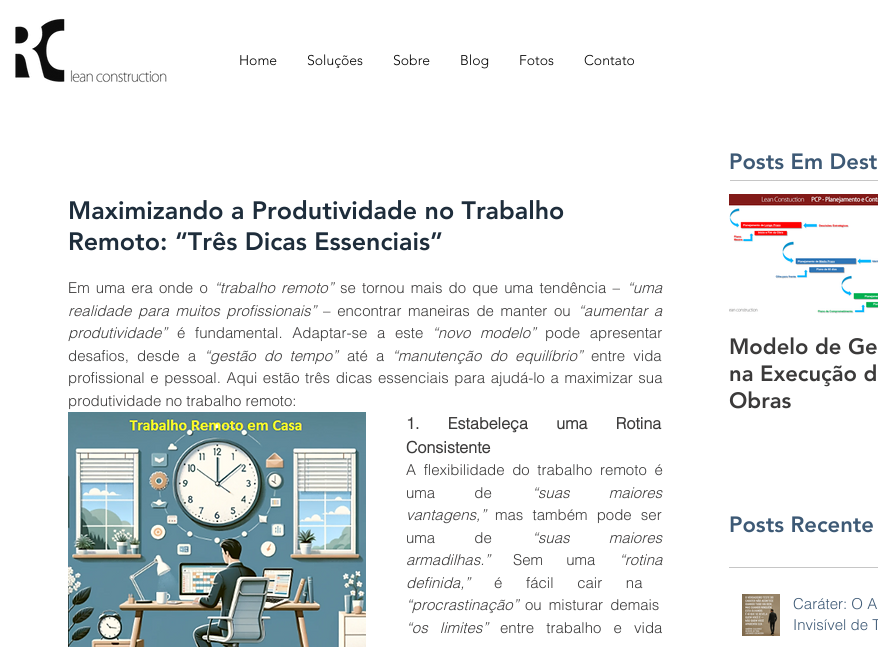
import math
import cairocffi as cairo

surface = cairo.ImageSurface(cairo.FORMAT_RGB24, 878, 647)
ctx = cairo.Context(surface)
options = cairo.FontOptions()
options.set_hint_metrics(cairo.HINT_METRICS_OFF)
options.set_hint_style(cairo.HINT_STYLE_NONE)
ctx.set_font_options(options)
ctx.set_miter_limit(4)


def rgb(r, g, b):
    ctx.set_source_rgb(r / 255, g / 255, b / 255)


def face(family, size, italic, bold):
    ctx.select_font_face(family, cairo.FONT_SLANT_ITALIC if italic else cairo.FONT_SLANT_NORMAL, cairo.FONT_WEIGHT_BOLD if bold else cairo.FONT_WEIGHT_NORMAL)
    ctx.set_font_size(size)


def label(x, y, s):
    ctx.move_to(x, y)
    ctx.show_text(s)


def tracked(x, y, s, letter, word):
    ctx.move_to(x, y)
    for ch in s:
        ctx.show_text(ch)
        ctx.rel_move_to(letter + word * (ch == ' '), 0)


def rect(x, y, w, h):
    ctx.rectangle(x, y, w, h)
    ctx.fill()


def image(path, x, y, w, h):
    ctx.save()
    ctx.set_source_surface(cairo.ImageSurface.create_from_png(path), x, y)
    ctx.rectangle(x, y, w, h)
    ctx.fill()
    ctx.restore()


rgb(255, 255, 255)
ctx.paint()
image('image0.png', 15, 18, 152, 65)
face('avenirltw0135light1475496 Light', 14, 0, 0)
rgb(0, 0, 0)
label(239, 65, 'Home')
label(307, 65, 'Soluções')
label(393, 65, 'Sobre')
label(460, 65, 'Blog')
label(519, 65, 'Fotos')
label(584, 65, 'Contato')
face('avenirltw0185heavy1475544 Black', 22, 0, 0)
rgb(61, 89, 117)
label(729, 169, 'Posts Em Dest')
rgb(198, 198, 198)
rect(730, 180, 148, 1)
face('avenirltw0185heavy1475544 Black', 25, 0, 0)
rgb(30, 45, 59)
label(68, 219, 'Maximizando a Produtividade no Trabalho')
label(68, 250, 'Remoto: “Três Dicas Essenciais”')
face('helvetica Light', 15, 0, 0)
rgb(59, 58, 58)
tracked(68, 293, 'Em uma era onde o', 0, 2)
face('helvetica Light', 15, 1, 0)
tracked(214, 293, '“trabalho remoto”', 0, 2)
face('helvetica Light', 15, 0, 0)
tracked(340, 293, 'se tornou mais do que uma tendência –', 0, 2)
face('helvetica Light', 15, 1, 0)
label(627, 293, '“uma')
tracked(68, 316, 'realidade para muitos profissionais”', 0, 2.5)
face('helvetica Light', 15, 0, 0)
tracked(323, 316, '– encontrar maneiras de manter ou', 0, 2.5)
face('helvetica Light', 15, 1, 0)
tracked(578, 316, '“aumentar a', 0, 2.5)
label(68, 338, 'produtividade”')
face('helvetica Light', 15, 0, 0)
tracked(177, 338, 'é fundamental. Adaptar-se a este', 0, 5.5)
face('helvetica Light', 15, 1, 0)
tracked(432, 338, '“novo modelo”', 0, 5.5)
face('helvetica Light', 15, 0, 0)
tracked(545, 338, 'pode apresentar', 0, 5.5)
tracked(68, 361, 'desafios, desde a', 0, 4)
face('helvetica Light', 15, 1, 0)
tracked(204, 361, '“gestão do tempo”', 0, 4)
face('helvetica Light', 15, 0, 0)
tracked(347, 361, 'até a', 0, 4)
face('helvetica Light', 15, 1, 0)
tracked(392, 361, '“manutenção do equilíbrio”', 0, 4)
face('helvetica Light', 15, 0, 0)
tracked(591, 361, 'entre vida', 0, 4)
tracked(68, 383, 'profissional e pessoal. Aqui estão três dicas essenciais para ajudá-lo a maximizar sua', 0, 1.4)
label(68, 406, 'produtividade no trabalho remoto:')
image('image1.png', 68, 412, 298, 235)
face('helvetica', 16, 0, 1)
tracked(406, 429, '1. Estabeleça uma Rotina', 0, 24)
label(406, 453, 'Consistente')
face('helvetica Light', 15, 0, 0)
tracked(406, 475, 'A flexibilidade do trabalho remoto é', 0, 3.5)
tracked(406, 498, 'uma de', 0, 35)
face('helvetica Light', 15, 1, 0)
tracked(532, 498, '“suas maiores', 0, 35)
label(406, 520, 'vantagens,”')
face('helvetica Light', 15, 0, 0)
tracked(495, 520, 'mas também pode ser', 0, 5)
tracked(406, 543, 'uma de', 0, 35)
face('helvetica Light', 15, 1, 0)
tracked(532, 543, '“suas maiores', 0, 35)
label(406, 565, 'armadilhas.”')
face('helvetica Light', 15, 0, 0)
tracked(513, 565, 'Sem uma', 0, 19)
face('helvetica Light', 15, 1, 0)
label(619, 565, '“rotina')
label(406, 588, 'definida,”')
face('helvetica Light', 15, 0, 0)
tracked(494, 588, 'é fácil cair na', 0, 19.5)
face('helvetica Light', 15, 1, 0)
label(406, 610, '“procrastinação”')
face('helvetica Light', 15, 0, 0)
tracked(525, 610, 'ou misturar demais', 0, 3)
face('helvetica Light', 15, 1, 0)
tracked(406, 633, '“os limites”', 0, 8)
face('helvetica Light', 15, 0, 0)
tracked(500, 633, 'entre trabalho e vida', 0, 8)
image('image2.png', 729, 194, 149, 123)
face('avenirltw0185heavy1475544 Black', 22, 0, 0)
label(729, 354, 'Modelo de Ge')
label(729, 381, 'na Execução d')
label(729, 408, 'Obras')
rgb(61, 89, 117)
label(729, 532, 'Posts Recente')
rgb(198, 198, 198)
rect(729, 567, 149, 1)
image('image3.png', 742, 594, 38, 42)
face('helvetica Light', 15, 0, 0)
rgb(61, 89, 117)
label(793, 609, 'Caráter: O A')
label(793, 630, 'Invisível de T')
surface.write_to_png('render.png')
